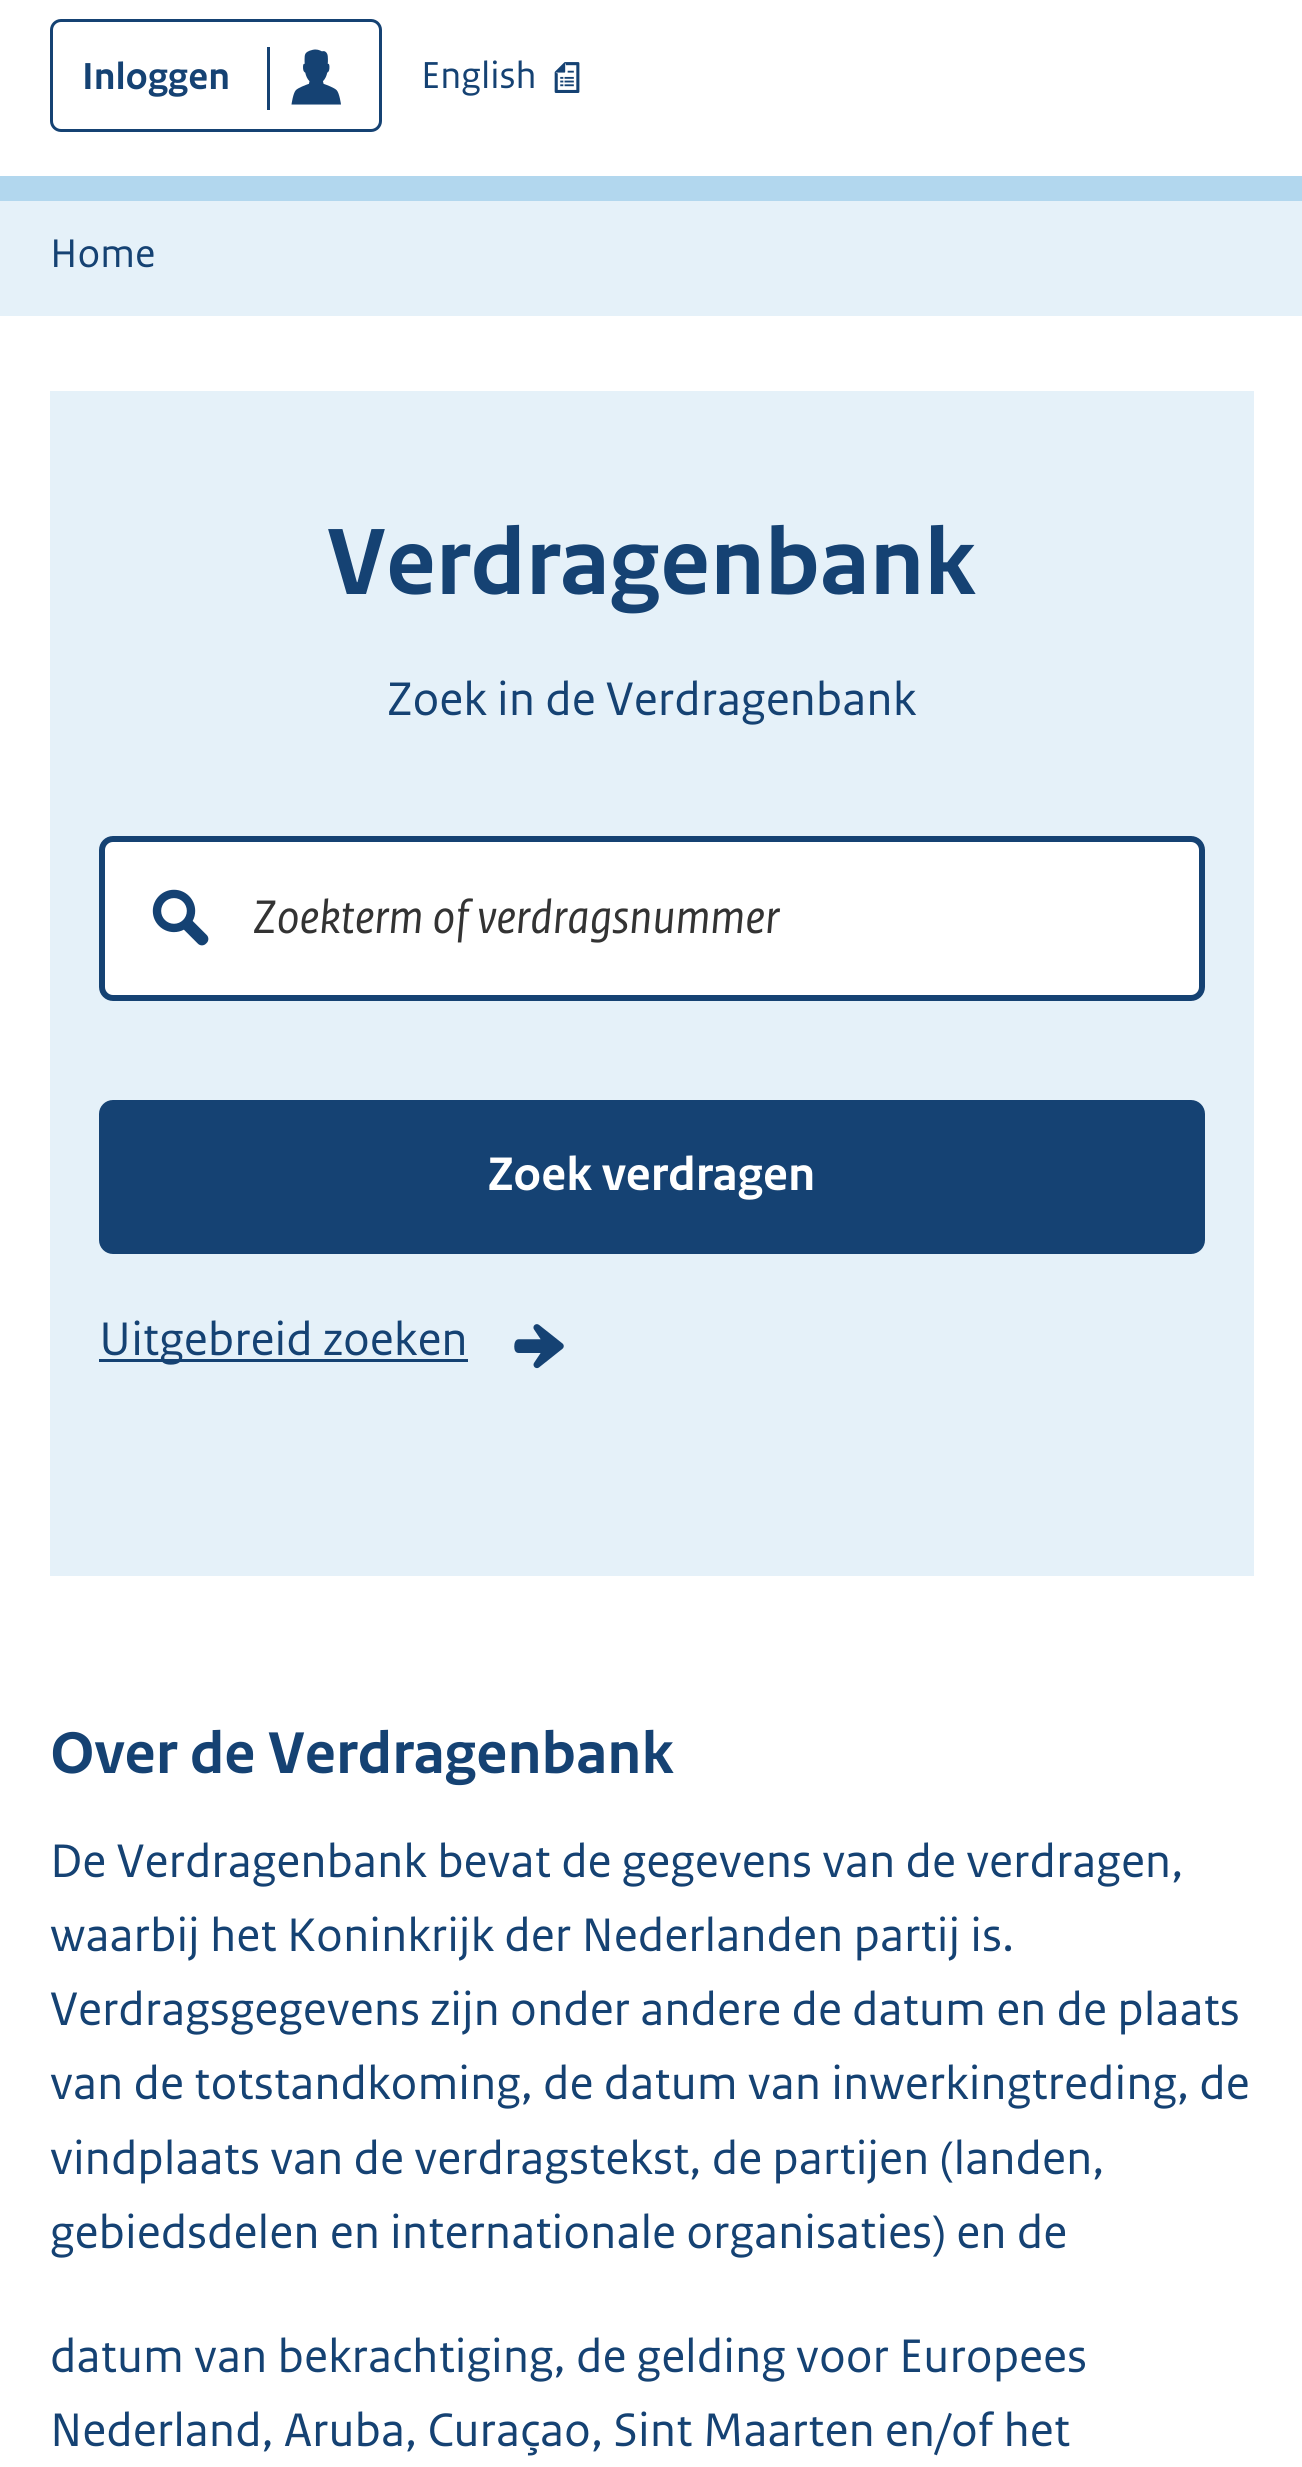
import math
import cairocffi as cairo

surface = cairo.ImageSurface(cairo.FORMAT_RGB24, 1302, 2467)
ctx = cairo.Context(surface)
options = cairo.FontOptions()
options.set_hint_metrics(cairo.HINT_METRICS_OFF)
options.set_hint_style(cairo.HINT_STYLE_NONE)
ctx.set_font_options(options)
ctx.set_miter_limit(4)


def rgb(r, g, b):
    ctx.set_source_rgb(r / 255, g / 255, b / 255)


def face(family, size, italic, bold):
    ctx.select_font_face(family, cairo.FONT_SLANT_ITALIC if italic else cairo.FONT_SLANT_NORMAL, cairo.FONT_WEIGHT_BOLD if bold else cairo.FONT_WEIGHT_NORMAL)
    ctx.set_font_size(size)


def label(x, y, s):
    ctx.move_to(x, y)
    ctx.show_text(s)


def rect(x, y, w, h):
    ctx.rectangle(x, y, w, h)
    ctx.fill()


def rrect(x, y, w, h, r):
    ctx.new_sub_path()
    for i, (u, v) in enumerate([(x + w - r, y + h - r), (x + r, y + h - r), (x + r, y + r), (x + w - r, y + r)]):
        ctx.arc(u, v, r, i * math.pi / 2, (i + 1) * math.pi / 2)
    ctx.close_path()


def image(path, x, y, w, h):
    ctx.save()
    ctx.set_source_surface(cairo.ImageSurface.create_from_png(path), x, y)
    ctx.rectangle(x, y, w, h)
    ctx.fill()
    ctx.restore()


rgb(255, 255, 255)
ctx.paint()
rgb(178, 215, 238)
rect(0, 176, 1302, 25)
image('image0.png', 291, 49, 50, 56)
rrect(51.5, 20.5, 329, 110, 9.5)
rgb(21, 66, 115)
ctx.set_line_width(3)
ctx.stroke()
face('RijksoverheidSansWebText', 39.5, 0, 1)
label(82, 89, 'Inloggen')
rect(267, 47, 3, 63)
image('image1.png', 554, 62, 26, 31)
face('RijksoverheidSansWebText', 39.5, 0, 0)
label(421, 88, 'English')
rgb(229, 241, 249)
rect(0, 201, 1302, 115)
face('RijksoverheidSansWebText', 42, 0, 0)
rgb(21, 66, 115)
label(50, 267, 'Home')
rgb(229, 241, 249)
rect(50, 391, 1204, 1185)
face('RijksoverheidSansWebText', 99, 0, 1)
rgb(21, 66, 115)
label(327, 594, 'Verdragenbank')
face('RijksoverheidSansWebText', 49.5, 0, 0)
label(387, 715, 'Zoek in de Verdragenbank')
rgb(255, 255, 255)
rrect(99, 836, 1106, 165, 14)
ctx.fill()
image('image2.png', 152, 889, 57, 57)
rrect(102, 839, 1100, 159, 11)
rgb(21, 66, 115)
ctx.set_line_width(6)
ctx.stroke()
face('RijksoverheidSansWebText', 49.5, 1, 0)
rgb(51, 51, 51)
label(253, 933, 'Zoekterm of verdragsnummer')
rgb(21, 66, 115)
rrect(100.5, 1101.5, 1103, 151, 12.5)
ctx.fill_preserve()
ctx.set_line_width(3)
ctx.stroke()
face('RijksoverheidSansWebText', 49.5, 0, 1)
rgb(255, 255, 255)
label(488, 1190, 'Zoek verdragen')
rgb(21, 66, 115)
rect(99, 1359, 369, 3)
face('RijksoverheidSansWebText', 49.5, 0, 0)
label(99, 1355, 'Uitgebreid zoeken')
image('image3.png', 514, 1324, 50, 45)
face('RijksoverheidSansWebText', 61.9, 0, 1)
label(50, 1773, 'Over de Verdragenbank')
face('RijksoverheidSansWebText', 49.5, 0, 0)
label(50, 1877, 'De Verdragenbank bevat de gegevens van de verdragen,')
label(50, 1951, 'waarbij het Koninkrijk der Nederlanden partij is.')
label(50, 2025, 'Verdragsgegevens zijn onder andere de datum en de plaats')
label(50, 2099, 'van de totstandkoming, de datum van inwerkingtreding, de')
label(50, 2174, 'vindplaats van de verdragstekst, de partijen (landen,')
label(50, 2248, 'gebiedsdelen en internationale organisaties) en de')
label(50, 2372, 'datum van bekrachtiging, de gelding voor Europees')
label(50, 2446, 'Nederland, Aruba, Curaçao, Sint Maarten en/of het')
surface.write_to_png('render.png')
